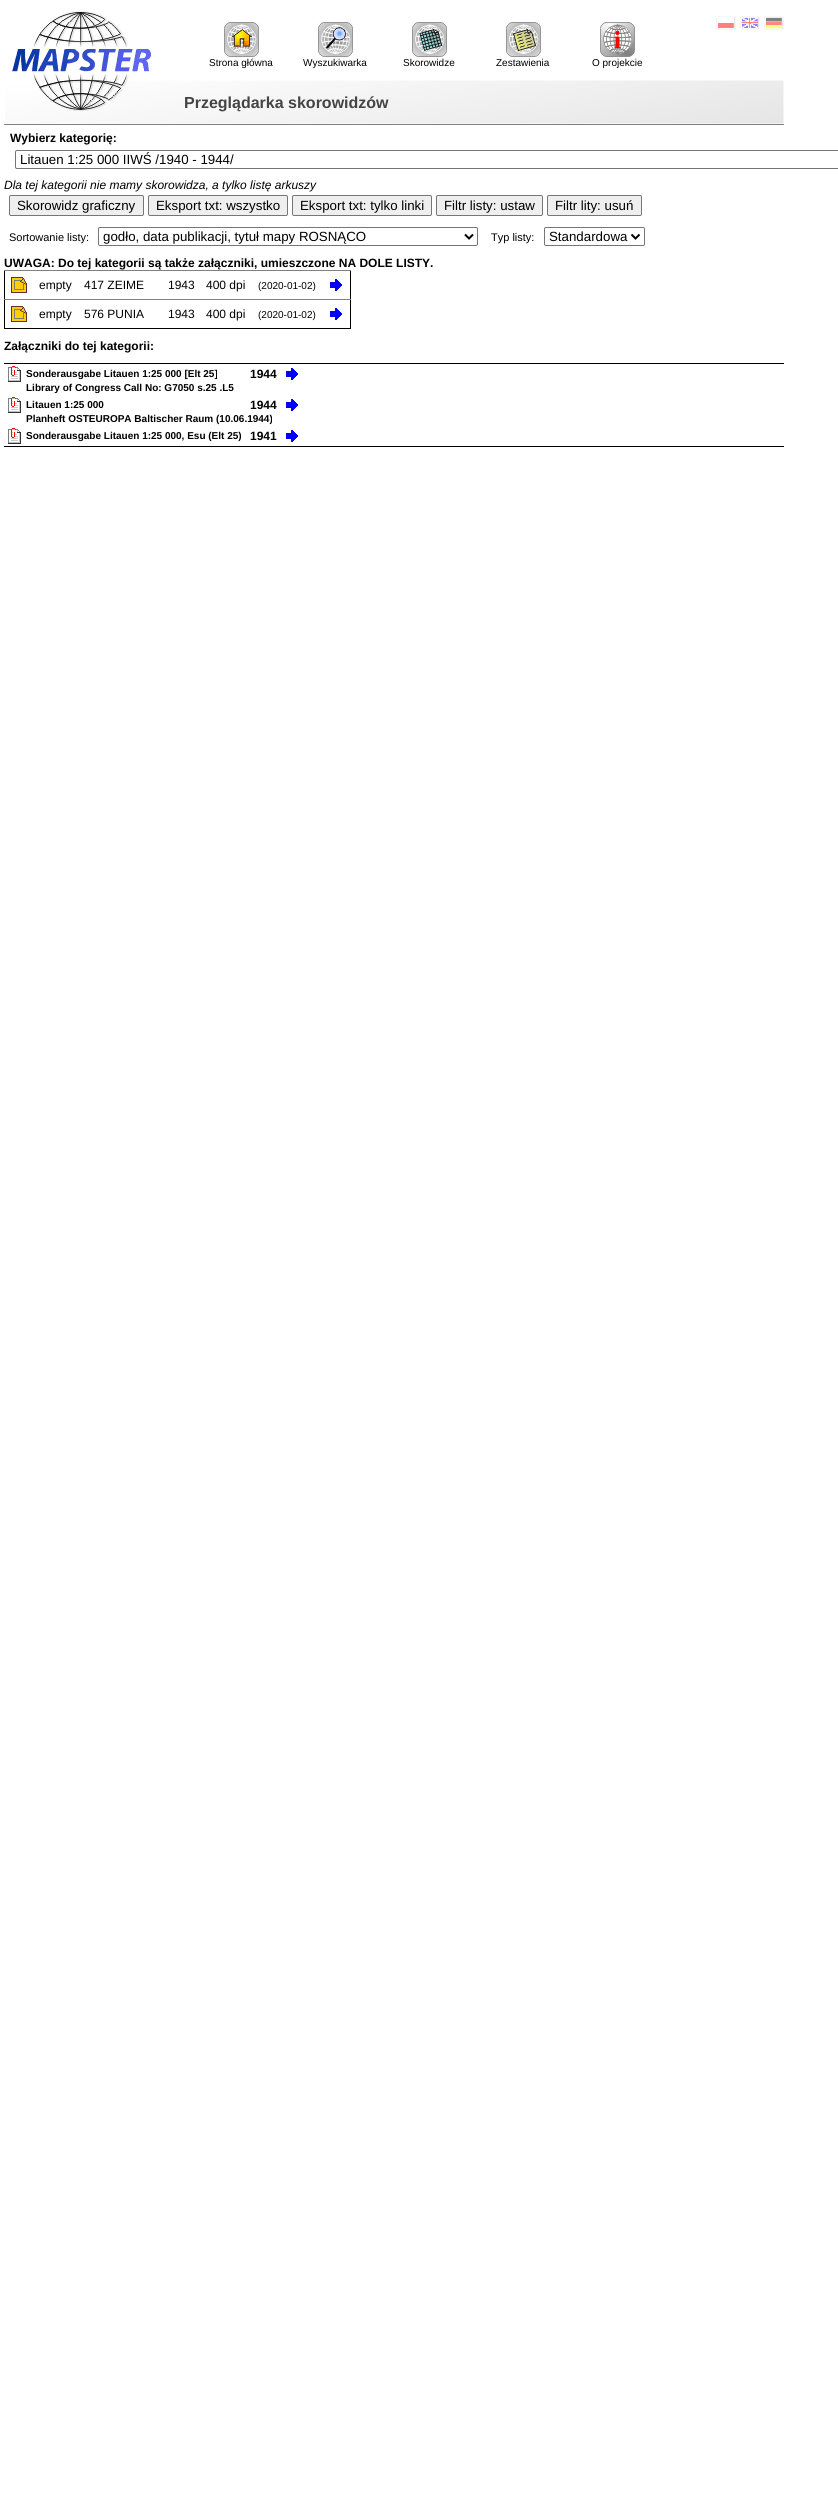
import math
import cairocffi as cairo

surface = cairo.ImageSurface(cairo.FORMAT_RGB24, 838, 2519)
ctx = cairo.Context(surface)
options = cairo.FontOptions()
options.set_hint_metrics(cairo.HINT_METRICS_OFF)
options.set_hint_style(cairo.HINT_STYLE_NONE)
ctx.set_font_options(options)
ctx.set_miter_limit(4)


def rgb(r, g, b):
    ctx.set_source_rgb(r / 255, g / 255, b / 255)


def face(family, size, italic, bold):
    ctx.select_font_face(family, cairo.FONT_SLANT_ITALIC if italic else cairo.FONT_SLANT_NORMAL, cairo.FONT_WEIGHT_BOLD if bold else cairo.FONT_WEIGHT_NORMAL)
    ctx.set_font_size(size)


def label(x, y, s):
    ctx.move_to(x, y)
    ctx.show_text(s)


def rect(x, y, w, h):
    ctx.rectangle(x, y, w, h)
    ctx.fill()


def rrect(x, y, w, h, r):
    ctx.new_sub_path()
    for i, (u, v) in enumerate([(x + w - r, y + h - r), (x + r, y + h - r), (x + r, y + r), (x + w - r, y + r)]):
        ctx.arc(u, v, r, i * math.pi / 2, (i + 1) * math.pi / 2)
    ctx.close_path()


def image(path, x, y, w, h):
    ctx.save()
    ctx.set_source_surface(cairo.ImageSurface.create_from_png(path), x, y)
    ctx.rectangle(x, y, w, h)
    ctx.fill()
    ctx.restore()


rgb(255, 255, 255)
ctx.paint()
image('image0.png', 5, 80, 779, 44)
rgb(128, 128, 128)
rect(4, 124, 780, 1)
image('image1.png', 12, 11, 139, 101)
image('image2.png', 716, 16, 20, 14)
image('image3.png', 740, 16, 20, 14)
image('image4.png', 764, 16, 20, 14)
image('image5.png', 224, 22, 35, 35)
face('Liberation Sans', 10, 0, 0)
rgb(0, 0, 0)
label(209, 66, 'Strona główna')
image('image6.png', 318, 22, 35, 35)
label(303, 66, 'Wyszukiwarka')
image('image7.png', 412, 22, 35, 35)
label(403, 66, 'Skorowidze')
image('image8.png', 506, 22, 35, 35)
label(496, 66, 'Zestawienia')
image('image9.png', 600, 22, 35, 35)
label(592, 66, 'O projekcie')
face('Liberation Sans', 16, 0, 1)
rgb(68, 68, 68)
label(184, 108, 'Przeglądarka skorowidzów')
face('Liberation Sans', 12, 0, 1)
rgb(0, 0, 0)
label(10, 142, 'Wybierz kategorię:')
rrect(15.5, 150.5, 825, 18, 1.5)
rgb(118, 118, 118)
ctx.set_line_width(1)
ctx.stroke()
face('Liberation Sans', 13.3, 0, 0)
rgb(0, 0, 0)
label(20, 164, 'Litauen 1:25 000 IIWŚ /1940 - 1944/')
face('Liberation Sans', 12, 1, 0)
label(4, 189, 'Dla tej kategorii nie mamy skorowidza, a tylko listę arkuszy')
rgb(239, 239, 239)
rrect(9.5, 195.5, 134, 20, 1.5)
ctx.fill_preserve()
rgb(118, 118, 118)
ctx.stroke()
face('Liberation Sans', 13.3, 0, 0)
rgb(0, 0, 0)
label(17, 210, 'Skorowidz graficzny')
rgb(239, 239, 239)
rrect(148.5, 195.5, 139, 20, 1.5)
ctx.fill_preserve()
rgb(118, 118, 118)
ctx.stroke()
rgb(0, 0, 0)
label(156, 210, 'Eksport txt: wszystko')
rgb(239, 239, 239)
rrect(292.5, 195.5, 139, 20, 1.5)
ctx.fill_preserve()
rgb(118, 118, 118)
ctx.stroke()
rgb(0, 0, 0)
label(300, 210, 'Eksport txt: tylko linki')
rgb(239, 239, 239)
rrect(436.5, 195.5, 106, 20, 1.5)
ctx.fill_preserve()
rgb(118, 118, 118)
ctx.stroke()
rgb(0, 0, 0)
label(444, 210, 'Filtr listy: ustaw')
rgb(239, 239, 239)
rrect(547.5, 195.5, 94, 20, 1.5)
ctx.fill_preserve()
rgb(118, 118, 118)
ctx.stroke()
rgb(0, 0, 0)
label(555, 210, 'Filtr lity: usuń')
face('Liberation Sans', 11, 0, 0)
label(9, 241, 'Sortowanie listy:')
rrect(98.5, 227.5, 379, 18, 1.5)
rgb(118, 118, 118)
ctx.stroke()
ctx.new_path()
ctx.move_to(465, 234.5)
ctx.line_to(469, 238.5)
ctx.line_to(473, 234.5)
rgb(0, 0, 0)
ctx.set_line_width(2)
ctx.stroke()
face('Liberation Sans', 13.3, 0, 0)
label(103, 241, 'godło, data publikacji, tytuł mapy ROSNĄCO')
face('Liberation Sans', 11, 0, 0)
label(491, 241, 'Typ listy:')
rrect(544.5, 227.5, 100, 18, 1.5)
rgb(118, 118, 118)
ctx.set_line_width(1)
ctx.stroke()
ctx.new_path()
ctx.move_to(631.5, 234.5)
ctx.line_to(635.5, 238.5)
ctx.line_to(639.5, 234.5)
rgb(0, 0, 0)
ctx.set_line_width(2)
ctx.stroke()
face('Liberation Sans', 13.3, 0, 0)
label(549, 241, 'Standardowa')
face('Liberation Sans', 12, 0, 1)
label(4, 267, 'UWAGA: Do tej kategorii są także załączniki, umieszczone NA DOLE LISTY.')
rect(350, 270, 1, 59)
rect(4, 328, 347, 1)
rect(4, 270, 1, 59)
rgb(128, 128, 128)
rect(4, 270, 347, 1)
image('image10.png', 330, 279, 12, 12)
image('image11.png', 11, 277, 16, 16)
face('Liberation Sans', 12, 0, 0)
rgb(0, 0, 0)
label(39, 289, 'empty')
label(84, 289, '417 ZEIME')
label(168, 289, '1943')
label(206, 289, '400 dpi')
face('Liberation Sans', 10, 0, 0)
label(258, 289, '(2020-01-02)')
rgb(128, 128, 128)
rect(4, 299, 347, 1)
image('image10.png', 330, 308, 12, 12)
image('image11.png', 11, 306, 16, 16)
face('Liberation Sans', 12, 0, 0)
rgb(0, 0, 0)
label(39, 318, 'empty')
label(84, 318, '576 PUNIA')
label(168, 318, '1943')
label(206, 318, '400 dpi')
face('Liberation Sans', 10, 0, 0)
label(258, 318, '(2020-01-02)')
face('Liberation Sans', 12, 0, 1)
label(4, 350, 'Załączniki do tej kategorii:')
rect(4, 363, 780, 1)
rect(4, 446, 780, 1)
image('image12.png', 8, 366, 13, 16)
face('Liberation Sans', 10, 0, 1)
label(26, 377, 'Sonderausgabe Litauen 1:25 000 [Elt 25]')
face('Liberation Sans', 12, 0, 1)
label(250, 378, '1944')
image('image10.png', 286, 368, 12, 12)
face('Liberation Sans', 10, 0, 1)
label(26, 391, 'Library of Congress Call No: G7050 s.25 .L5')
image('image12.png', 8, 397, 13, 16)
label(26, 408, 'Litauen 1:25 000')
face('Liberation Sans', 12, 0, 1)
label(250, 409, '1944')
image('image10.png', 286, 399, 12, 12)
face('Liberation Sans', 10, 0, 1)
label(26, 422, 'Planheft OSTEUROPA Baltischer Raum (10.06.1944)')
image('image12.png', 8, 428, 13, 16)
label(26, 439, 'Sonderausgabe Litauen 1:25 000, Esu (Elt 25)')
face('Liberation Sans', 12, 0, 1)
label(250, 440, '1941')
image('image10.png', 286, 430, 12, 12)
surface.write_to_png('render.png')
